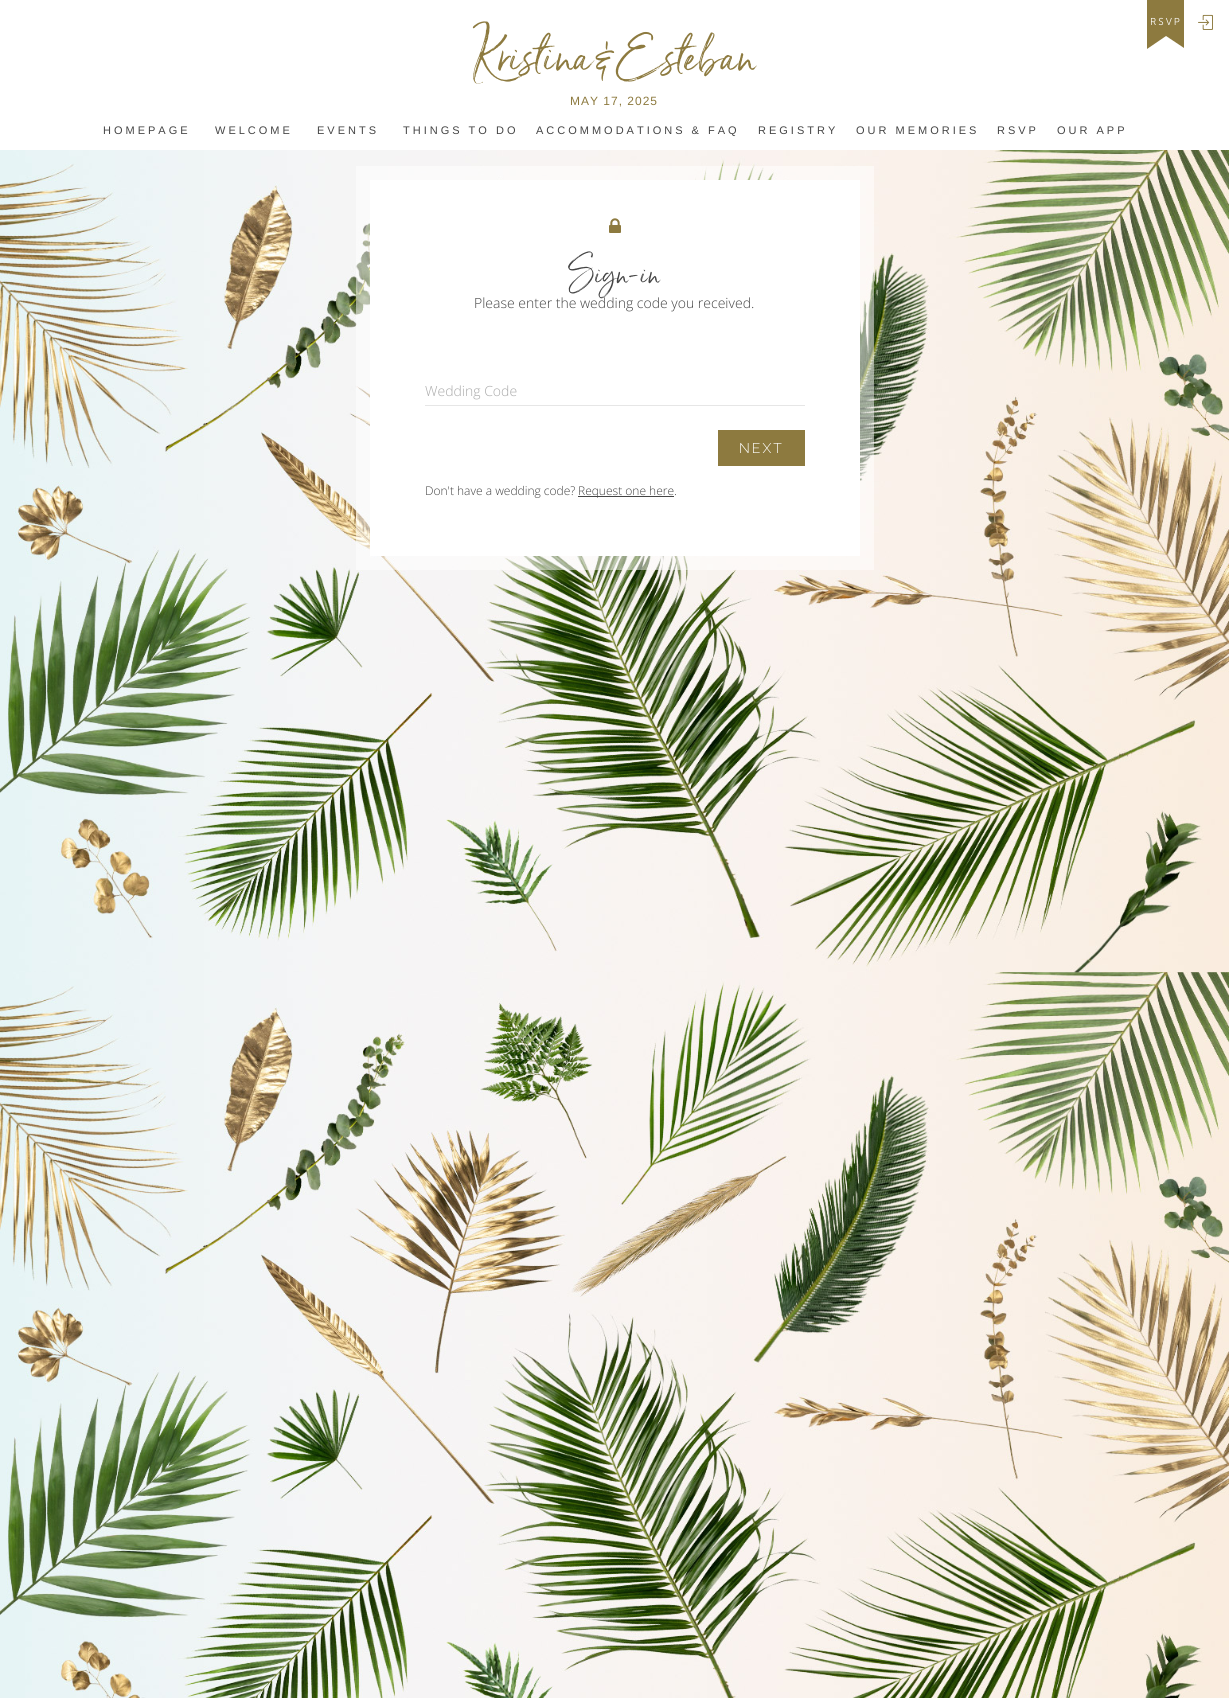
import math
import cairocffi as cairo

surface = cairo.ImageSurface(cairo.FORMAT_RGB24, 1229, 1698)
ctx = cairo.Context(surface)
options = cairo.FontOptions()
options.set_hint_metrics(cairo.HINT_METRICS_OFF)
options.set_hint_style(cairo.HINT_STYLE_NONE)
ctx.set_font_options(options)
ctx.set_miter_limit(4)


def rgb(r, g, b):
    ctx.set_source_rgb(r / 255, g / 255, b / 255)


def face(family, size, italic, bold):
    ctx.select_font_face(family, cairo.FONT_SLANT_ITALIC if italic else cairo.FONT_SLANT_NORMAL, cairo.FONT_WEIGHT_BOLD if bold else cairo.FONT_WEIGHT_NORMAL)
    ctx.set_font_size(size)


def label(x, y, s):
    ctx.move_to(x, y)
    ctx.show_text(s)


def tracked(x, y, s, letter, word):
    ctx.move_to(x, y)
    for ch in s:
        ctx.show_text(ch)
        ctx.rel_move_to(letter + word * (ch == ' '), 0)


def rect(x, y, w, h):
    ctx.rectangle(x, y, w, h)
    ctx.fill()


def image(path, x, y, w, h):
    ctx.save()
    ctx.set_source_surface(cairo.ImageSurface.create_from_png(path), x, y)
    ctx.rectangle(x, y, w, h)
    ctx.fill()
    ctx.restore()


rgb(255, 255, 255)
ctx.paint()
face('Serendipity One', 56, 0, 0)
rgb(141, 122, 63)
label(473, 72, 'Kristina & Esteban')
face('Liberation Sans', 12, 0, 0)
tracked(570, 105, 'MAY 17, 2025', 1, 0)
face('Liberation Sans', 11, 0, 0)
rgb(69, 69, 69)
tracked(103, 134, 'HOMEPAGE', 3, 0)
tracked(215, 134, 'WELCOME', 3, 0)
tracked(317, 134, 'EVENTS', 3, 0)
tracked(403, 134, 'THINGS TO DO', 3, 0)
tracked(536, 134, 'ACCOMMODATIONS & FAQ', 3, 0)
tracked(758, 134, 'REGISTRY', 3, 0)
tracked(856, 134, 'OUR MEMORIES', 3, 0)
tracked(997, 134, 'RSVP', 3, 0)
tracked(1057, 134, 'OUR APP', 3, 0)
rgb(141, 122, 63)
ctx.new_path()
ctx.move_to(1147, -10)
ctx.line_to(1147, 49)
ctx.line_to(1166, 36)
ctx.line_to(1184, 48)
ctx.line_to(1184, -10)
ctx.close_path()
ctx.fill()
face('Museo Sans', 10, 0, 0)
rgb(255, 255, 255)
tracked(1150, 25, 'RSVP', 2, 0)
image('image0.png', 1198, 14, 15, 16)
image('image1.png', 0, 150, 1229, 1548)
rect(370, 180, 490, 376)
ctx.rectangle(363, 173, 504, 390)
ctx.set_source_rgba(1, 1, 1, 0.5)
ctx.set_line_width(14)
ctx.stroke()
image('image2.png', 609, 218, 12, 15)
face('Serendipity One', 36, 0, 0)
rgb(69, 69, 69)
label(569, 284, 'Sign-in')
face('Open Sans Light', 14, 0, 0)
label(474, 308, 'Please enter the wedding code you received.')
rgb(170, 170, 170)
label(425, 396, 'Wedding Code')
rgb(230, 230, 230)
rect(425, 405, 380, 1)
rgb(141, 122, 63)
rect(718, 430, 87, 36)
face('Raleway Light', 14, 0, 0)
rgb(255, 255, 255)
tracked(739, 453, 'NEXT', 2, 0)
face('Open Sans Light', 12, 0, 0)
rgb(69, 69, 69)
label(425, 495, 'Don\'t have a wedding code?')
rect(578, 496, 96, 1)
label(578, 495, 'Request one here.')
surface.write_to_png('render.png')
